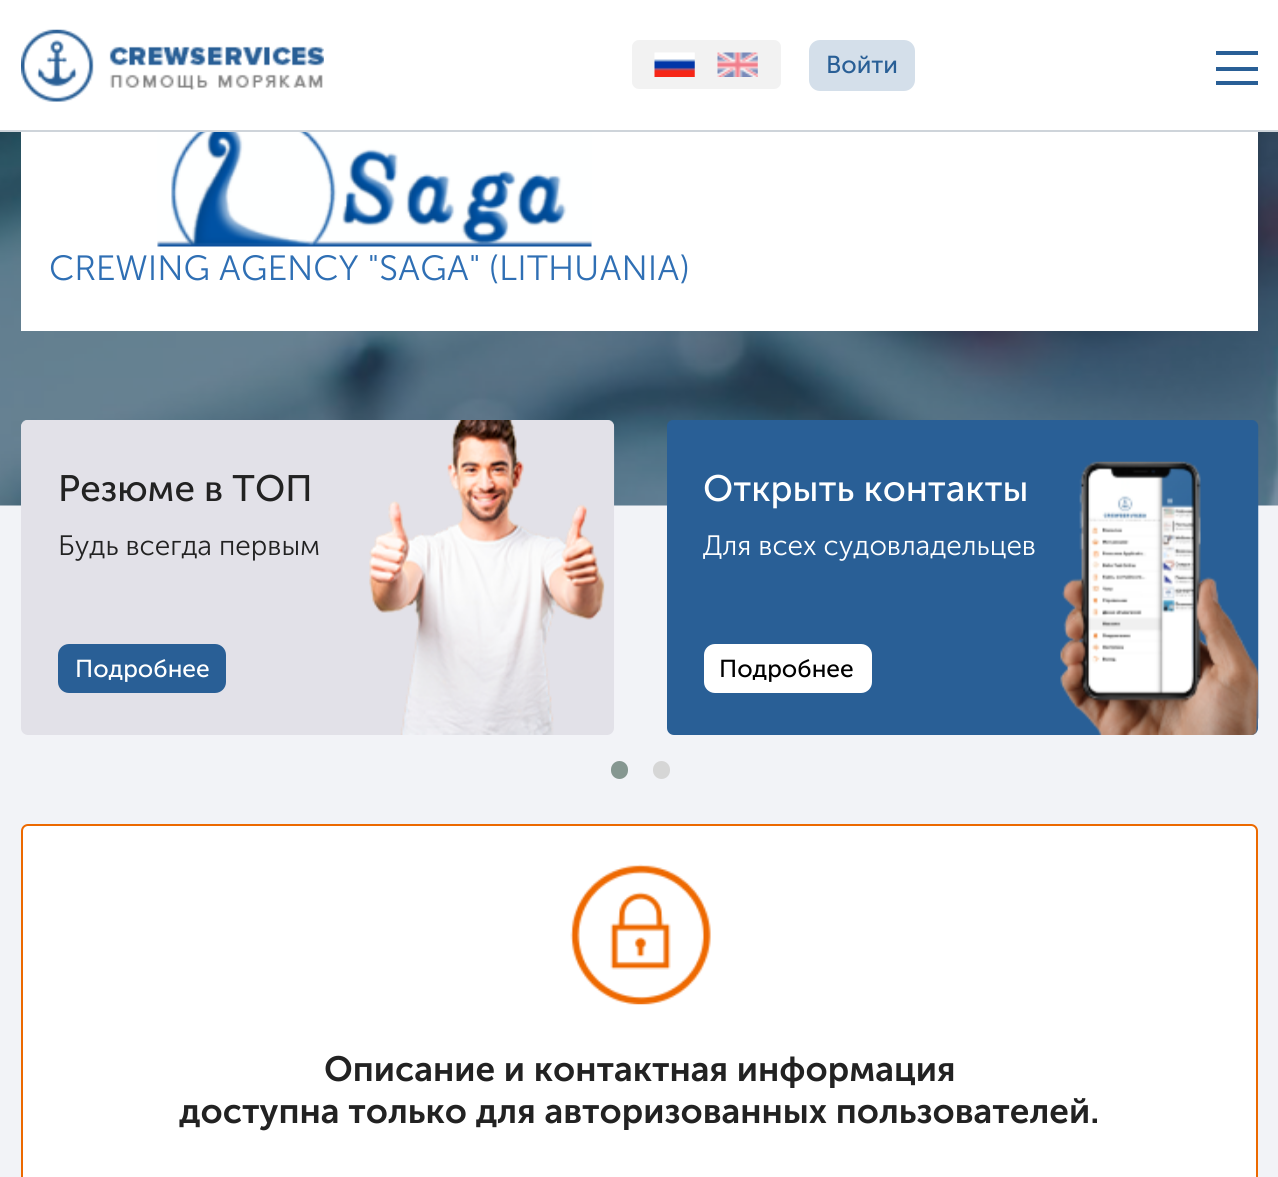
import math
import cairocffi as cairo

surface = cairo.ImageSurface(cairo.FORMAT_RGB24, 1278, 1177)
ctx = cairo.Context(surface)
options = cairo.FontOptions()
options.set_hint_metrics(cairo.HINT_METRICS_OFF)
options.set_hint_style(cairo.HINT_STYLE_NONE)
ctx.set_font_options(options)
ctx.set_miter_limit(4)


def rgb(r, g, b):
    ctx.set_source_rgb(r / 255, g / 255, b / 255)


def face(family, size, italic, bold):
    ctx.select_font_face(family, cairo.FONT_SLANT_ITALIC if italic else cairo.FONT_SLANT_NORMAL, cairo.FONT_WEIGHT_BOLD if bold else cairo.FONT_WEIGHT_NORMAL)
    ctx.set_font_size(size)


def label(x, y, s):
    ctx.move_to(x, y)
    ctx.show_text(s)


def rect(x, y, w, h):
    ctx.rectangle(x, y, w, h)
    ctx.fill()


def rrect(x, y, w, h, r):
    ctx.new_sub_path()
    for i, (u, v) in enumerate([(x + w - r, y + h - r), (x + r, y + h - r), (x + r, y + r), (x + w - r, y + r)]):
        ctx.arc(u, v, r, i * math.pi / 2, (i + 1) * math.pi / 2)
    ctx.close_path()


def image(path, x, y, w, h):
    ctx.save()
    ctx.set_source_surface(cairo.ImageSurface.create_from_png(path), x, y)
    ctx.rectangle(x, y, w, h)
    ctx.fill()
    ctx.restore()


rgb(242, 243, 247)
ctx.paint()
rgb(255, 255, 255)
rect(0, 0, 1278, 130)
rgb(206, 212, 218)
rect(0, 130, 1278, 2)
image('image0.png', 21, 29, 303, 73)
rgb(242, 242, 242)
rrect(632, 40, 149, 49, 7)
ctx.fill()
image('image1.png', 654, 52, 41, 25)
image('image2.png', 717, 52, 41, 25)
rgb(212, 223, 234)
rrect(810, 41, 104, 49, 10)
ctx.fill_preserve()
ctx.stroke()
face('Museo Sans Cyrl', 24.5, 0, 0)
rgb(41, 95, 150)
label(826, 73, 'Войти')
rect(1216, 81, 42, 4)
rect(1216, 51, 42, 4)
rect(1216, 67, 42, 4)
image('image3.png', 0, 132, 1278, 374)
rgb(255, 255, 255)
rect(21, 132, 1237, 199)
image('image4.png', 157, 132, 435, 115)
face('Museo Sans Cyrl Light', 35, 0, 0)
rgb(47, 111, 180)
label(49, 280, 'CREWING AGENCY "SAGA" (LITHUANIA)')
image('image5.png', 21, 420, 594, 298)
rgb(226, 225, 232)
rrect(21, 420, 593, 315, 7)
ctx.fill()
image('image6.png', 369, 420, 236, 315)
face('Museo Sans Cyrl', 36.75, 0, 0)
rgb(34, 34, 34)
label(58, 501, 'Резюме в ТОП')
face('Museo Sans Cyrl Light', 28, 0, 0)
label(58, 555, 'Будь всегда первым')
rgb(41, 95, 150)
rrect(59, 645, 166, 47, 10)
ctx.fill_preserve()
ctx.stroke()
face('Museo Sans Cyrl', 24.5, 0, 0)
rgb(255, 255, 255)
label(75, 677, 'Подробнее')
image('image7.png', 667, 420, 592, 300)
rgb(41, 95, 150)
rrect(667, 420, 591, 315, 7)
ctx.fill()
image('image8.png', 1060, 461, 199, 274)
face('Museo Sans Cyrl', 36.75, 0, 0)
rgb(255, 255, 255)
label(703, 501, 'Открыть контакты')
face('Museo Sans Cyrl Light', 28, 0, 0)
label(703, 555, 'Для всех судовладельцев')
rrect(705, 645, 166, 47, 10)
ctx.fill_preserve()
ctx.stroke()
face('Museo Sans Cyrl', 24.5, 0, 0)
rgb(0, 0, 0)
label(719, 677, 'Подробнее')
rgb(134, 151, 145)
rrect(611, 761, 17, 18, 8.5)
ctx.fill()
rgb(214, 214, 214)
rrect(653, 761, 17, 18, 8.5)
ctx.fill()
rgb(255, 255, 255)
rrect(22, 825, 1235, 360, 6)
ctx.fill_preserve()
rgb(236, 105, 0)
ctx.stroke()
image('image9.png', 570, 864, 141, 141)
face('Museo Sans Cyrl SemiBold', 35, 0, 0)
rgb(34, 34, 34)
label(324, 1081, 'Описание и контактная информация')
label(179, 1123, 'доступна только для авторизованных пользователей.')
surface.write_to_png('render.png')
